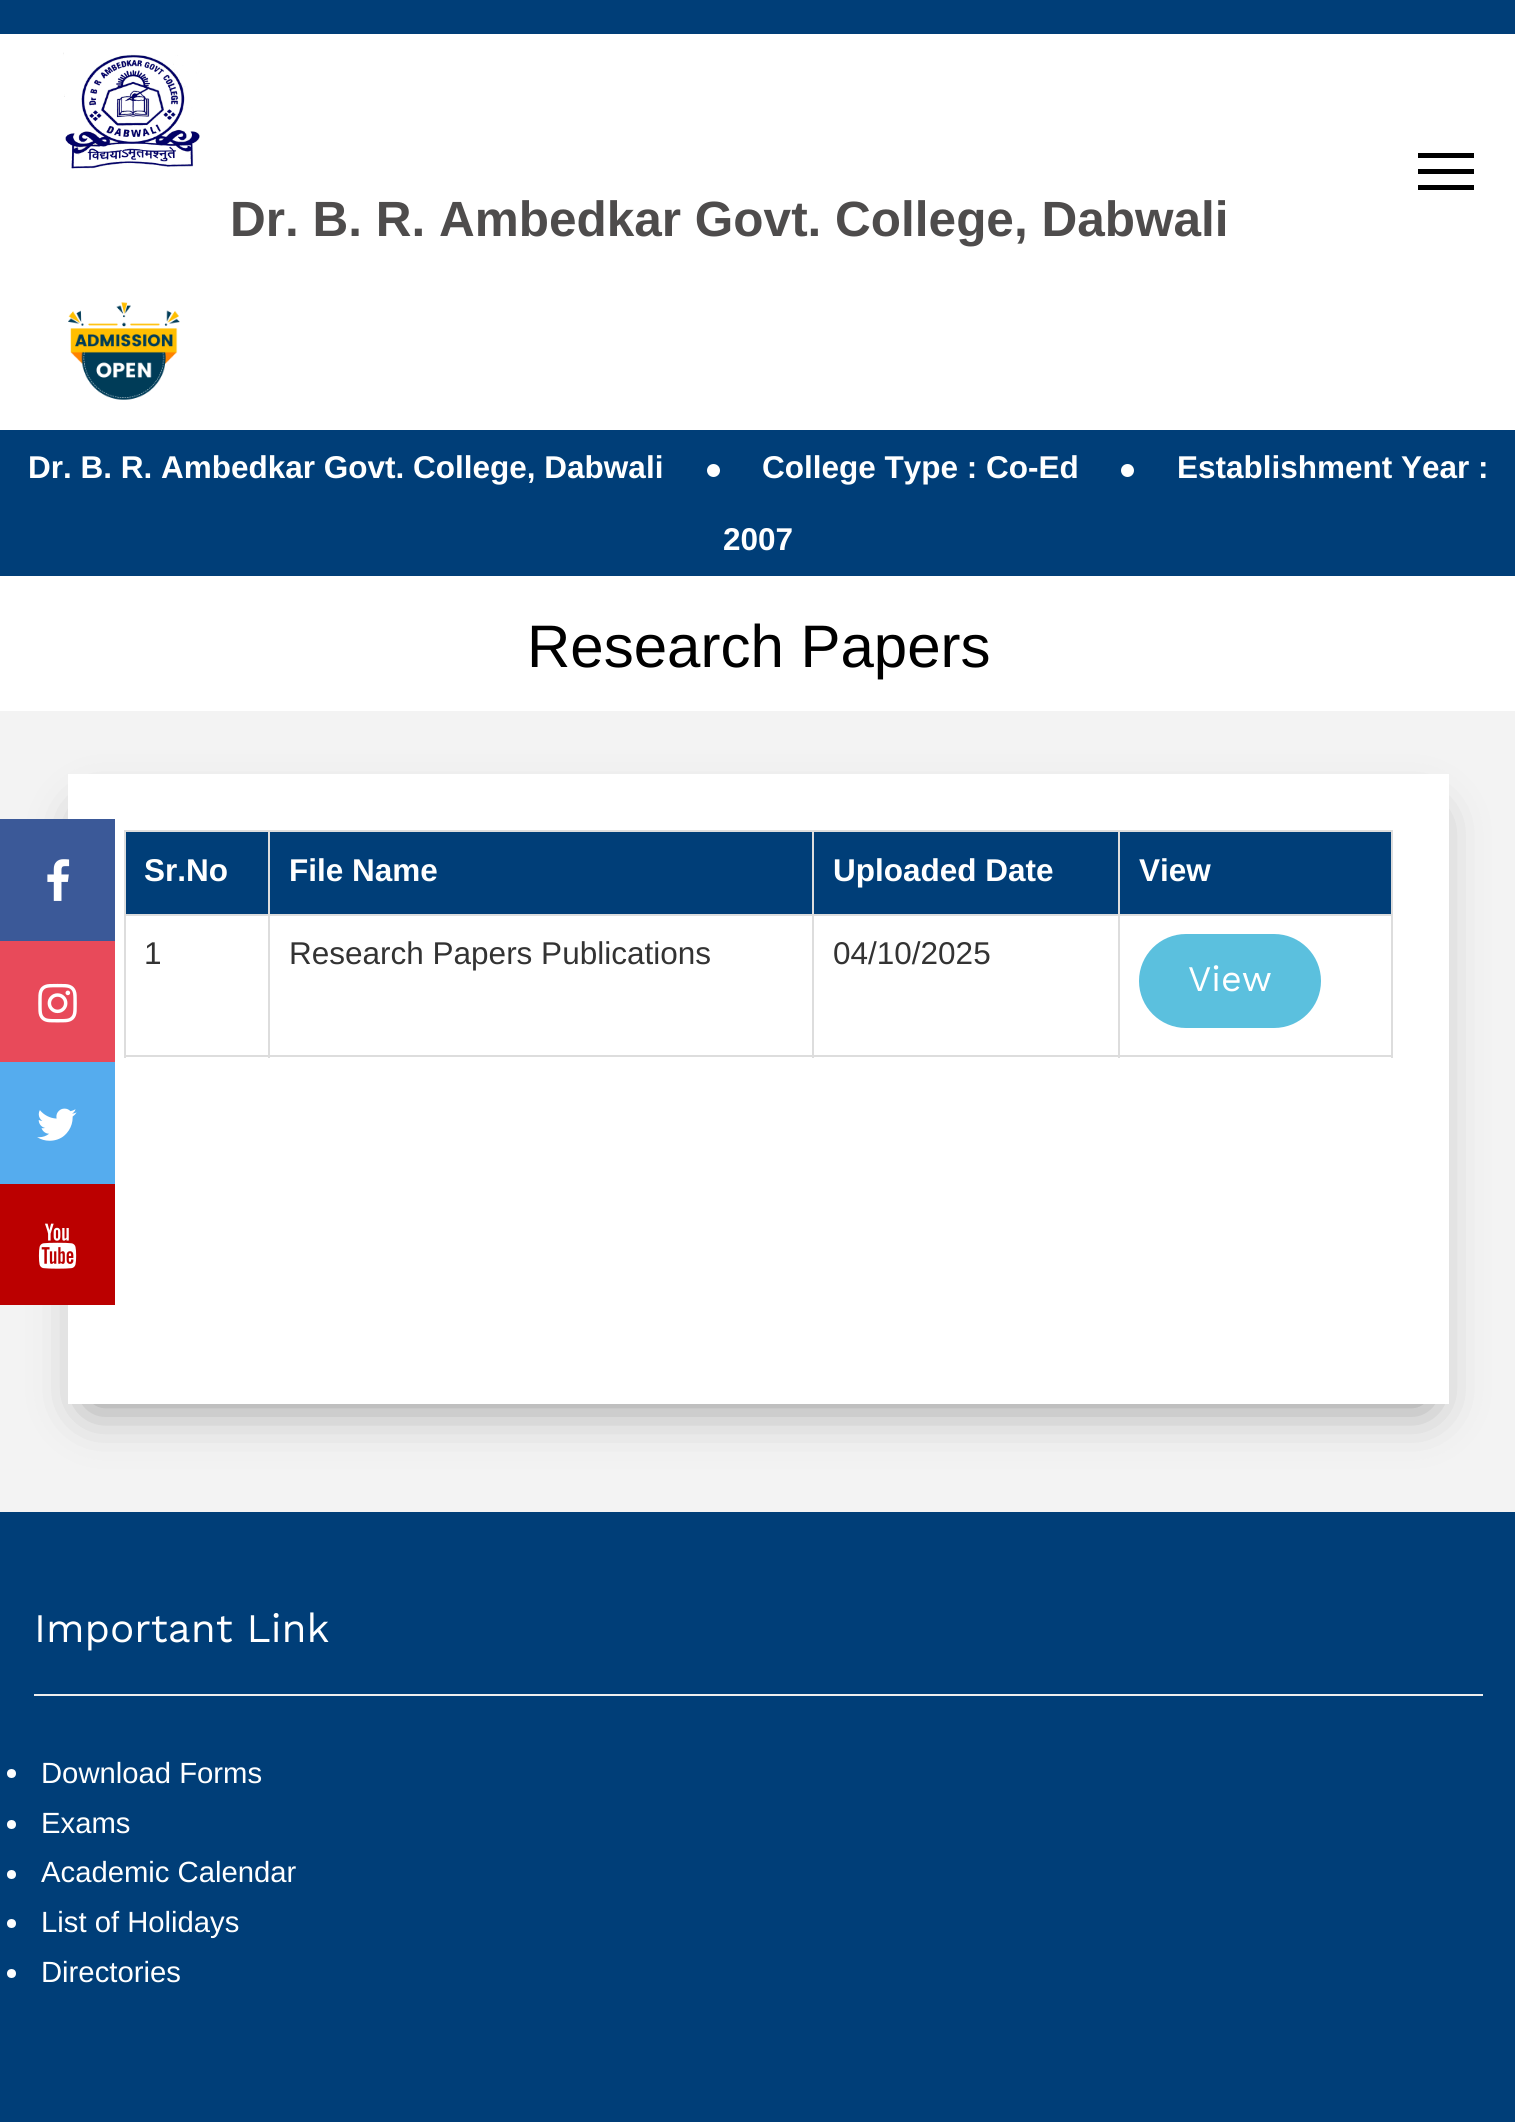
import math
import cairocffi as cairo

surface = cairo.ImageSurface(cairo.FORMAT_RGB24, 1515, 2122)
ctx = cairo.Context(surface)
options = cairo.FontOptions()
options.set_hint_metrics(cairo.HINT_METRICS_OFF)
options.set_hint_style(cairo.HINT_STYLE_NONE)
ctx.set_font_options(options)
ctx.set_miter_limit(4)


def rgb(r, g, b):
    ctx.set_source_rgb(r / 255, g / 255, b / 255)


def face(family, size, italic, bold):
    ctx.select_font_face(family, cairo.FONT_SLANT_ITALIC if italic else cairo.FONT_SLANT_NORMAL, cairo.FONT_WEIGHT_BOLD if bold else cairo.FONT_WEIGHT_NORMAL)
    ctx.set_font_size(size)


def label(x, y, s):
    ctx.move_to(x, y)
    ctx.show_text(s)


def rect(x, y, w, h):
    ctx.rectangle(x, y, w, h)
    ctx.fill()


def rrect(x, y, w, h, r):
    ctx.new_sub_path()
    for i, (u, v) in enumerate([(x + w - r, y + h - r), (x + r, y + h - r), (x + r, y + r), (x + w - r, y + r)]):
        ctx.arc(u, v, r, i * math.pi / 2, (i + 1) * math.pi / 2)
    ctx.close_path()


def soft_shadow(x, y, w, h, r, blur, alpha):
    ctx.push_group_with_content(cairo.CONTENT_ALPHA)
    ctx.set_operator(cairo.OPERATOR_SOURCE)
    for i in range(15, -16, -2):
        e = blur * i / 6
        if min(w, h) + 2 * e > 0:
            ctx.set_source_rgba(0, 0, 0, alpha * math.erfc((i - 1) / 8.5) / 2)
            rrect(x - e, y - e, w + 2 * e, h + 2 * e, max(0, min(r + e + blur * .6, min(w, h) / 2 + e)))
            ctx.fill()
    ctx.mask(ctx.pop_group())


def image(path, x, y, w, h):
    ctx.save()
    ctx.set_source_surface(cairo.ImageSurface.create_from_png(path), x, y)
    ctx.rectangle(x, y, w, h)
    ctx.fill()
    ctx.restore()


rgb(255, 255, 255)
ctx.paint()
rgb(0, 0, 0)
rect(1418, 169, 56, 5)
rect(1418, 153, 56, 5)
rect(1418, 185, 56, 5)
rgb(0, 62, 120)
rect(0, 0, 1515, 34)
image('image0.png', 63, 52, 137, 117)
face('Liberation Sans', 49.5, 0, 1)
rgb(78, 76, 76)
label(230, 236, 'Dr. B. R. Ambedkar Govt. College, Dabwali')
image('image1.png', 68, 302, 112, 98)
rgb(0, 62, 120)
rect(0, 430, 1515, 146)
face('Liberation Sans', 31.5, 0, 1)
rgb(255, 255, 255)
label(28, 478, 'Dr. B. R. Ambedkar Govt. College, Dabwali')
ctx.new_path()
ctx.arc(713.5, 470.5, 6.5, 0, 2 * math.pi)
ctx.fill()
label(762, 478, 'College Type : Co-Ed')
ctx.new_path()
ctx.arc(1127.5, 470.5, 6.5, 0, 2 * math.pi)
ctx.fill()
label(1177, 478, 'Establishment Year :')
label(723, 550, '2007')
face('Liberation Sans', 60, 0, 0)
rgb(0, 0, 0)
label(527, 667, 'Research Papers')
rgb(243, 243, 243)
rect(0, 711, 1515, 801)
rgb(0, 0, 0)
soft_shadow(90, 819, 1337, 585, 0, 26, 0.43)
rgb(255, 255, 255)
rect(68, 774, 1381, 630)
rgb(59, 89, 152)
rect(0, 819, 115, 122)
image('image2.png', 47, 859, 23, 42)
rgb(232, 74, 90)
rect(0, 941, 115, 121)
image('image3.png', 38, 983, 39, 40)
rgb(85, 172, 238)
rect(0, 1062, 115, 122)
image('image4.png', 37, 1108, 40, 33)
rgb(187, 0, 0)
rect(0, 1184, 115, 121)
image('image5.png', 38, 1223, 39, 46)
rgb(0, 62, 120)
rect(126, 832, 1265, 82)
rgb(221, 221, 221)
rect(1118, 830, 275, 2)
rect(1118, 914, 275, 2)
rect(1391, 914, 2, 144)
rect(1118, 1055, 275, 2)
rect(1118, 914, 2, 144)
rect(812, 914, 309, 2)
rect(1118, 830, 2, 86)
rect(812, 830, 309, 2)
rect(812, 1055, 309, 2)
rect(812, 914, 2, 144)
rect(268, 914, 547, 2)
rect(812, 830, 2, 86)
rect(268, 830, 547, 2)
rect(268, 1055, 547, 2)
rect(268, 914, 2, 144)
rect(124, 914, 146, 2)
rect(268, 830, 2, 86)
rect(124, 830, 146, 2)
rect(124, 1055, 146, 2)
rect(124, 914, 2, 144)
rect(124, 830, 2, 86)
face('Liberation Sans', 31.5, 0, 1)
rgb(255, 255, 255)
label(144, 881, 'Sr.No')
label(289, 881, 'File Name')
label(833, 881, 'Uploaded Date')
rgb(221, 221, 221)
rect(1391, 830, 2, 86)
rgb(255, 255, 255)
label(1139, 881, 'View')
face('Liberation Sans', 31.5, 0, 0)
rgb(51, 51, 51)
label(144, 964, '1')
label(289, 964, 'Research Papers Publications')
label(833, 964, '04/10/2025')
rgb(91, 192, 222)
rrect(1141.5, 936.5, 177, 89, 44.5)
ctx.fill_preserve()
ctx.set_line_width(5)
ctx.stroke()
face('Work Sans', 36, 0, 0)
rgb(255, 255, 255)
label(1188, 991, 'View')
rgb(0, 62, 120)
rect(0, 1512, 1515, 610)
face('Work Sans', 40.5, 0, 0)
rgb(255, 255, 255)
label(34, 1642, 'Important Link')
rgb(238, 238, 238)
rect(34, 1694, 1449, 2)
rgb(255, 255, 255)
ctx.new_path()
ctx.arc(11.5, 1773.5, 4.5, 0, 2 * math.pi)
ctx.fill()
face('Liberation Sans', 29.25, 0, 0)
label(41, 1783, 'Download Forms')
ctx.new_path()
ctx.arc(11.5, 1824.5, 4.5, 0, 2 * math.pi)
ctx.fill()
label(41, 1833, 'Exams')
ctx.new_path()
ctx.arc(11.5, 1874.5, 4.5, 0, 2 * math.pi)
ctx.fill()
label(41, 1882, 'Academic Calendar')
ctx.new_path()
ctx.arc(11.5, 1923.5, 4.5, 0, 2 * math.pi)
ctx.fill()
label(41, 1932, 'List of Holidays')
ctx.new_path()
ctx.arc(11.5, 1973.5, 4.5, 0, 2 * math.pi)
ctx.fill()
label(41, 1982, 'Directories')
surface.write_to_png('render.png')
